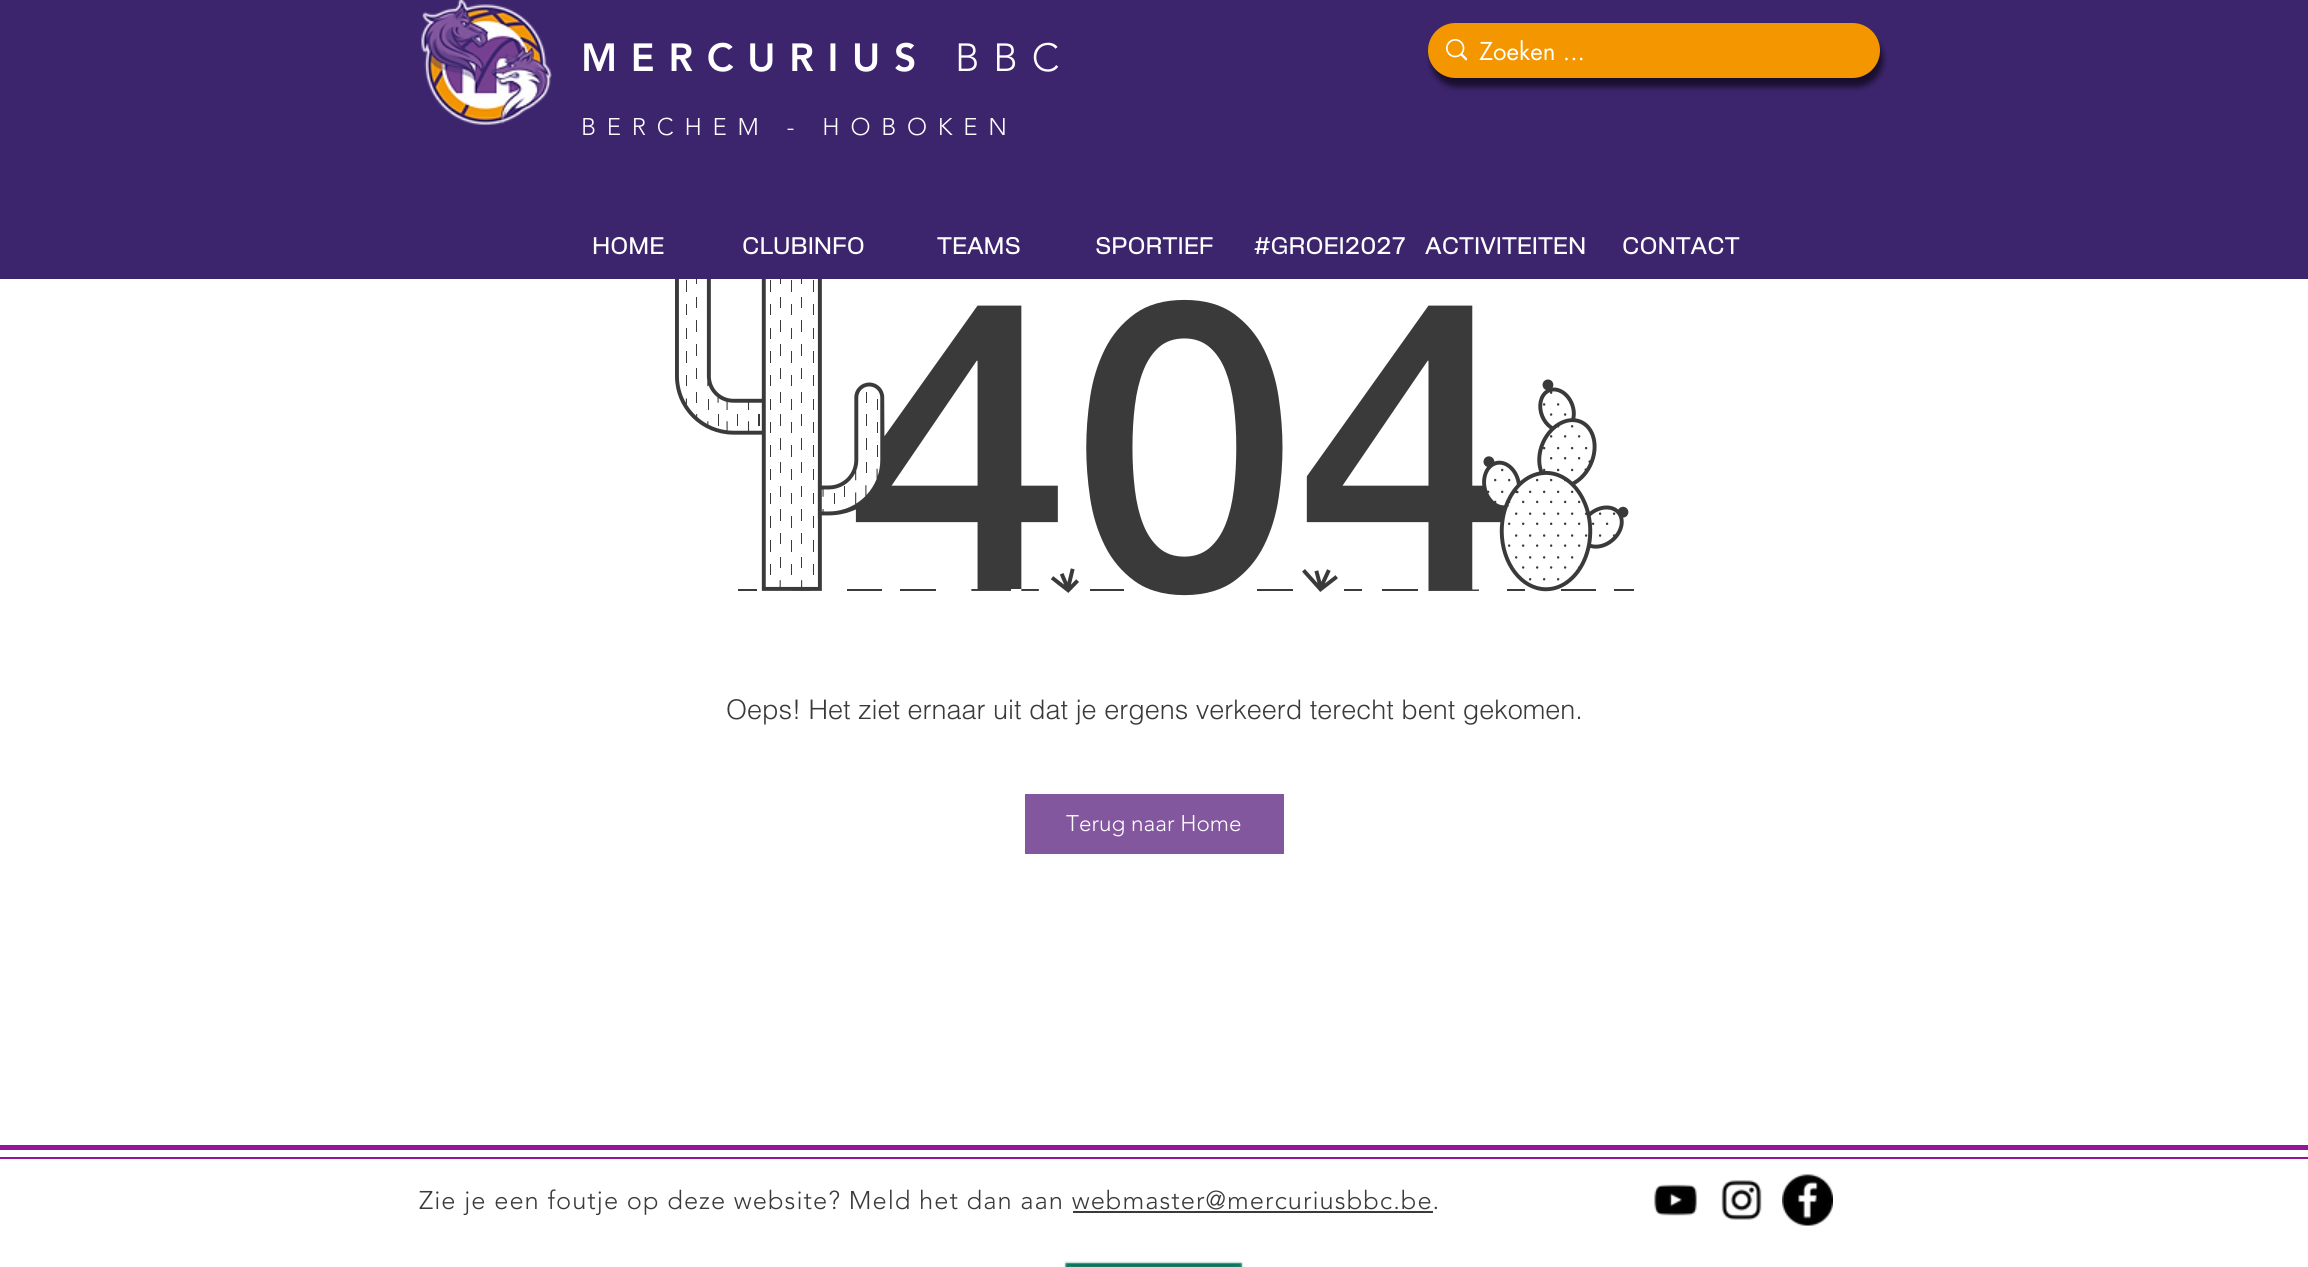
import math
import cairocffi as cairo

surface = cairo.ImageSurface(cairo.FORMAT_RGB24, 2308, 1267)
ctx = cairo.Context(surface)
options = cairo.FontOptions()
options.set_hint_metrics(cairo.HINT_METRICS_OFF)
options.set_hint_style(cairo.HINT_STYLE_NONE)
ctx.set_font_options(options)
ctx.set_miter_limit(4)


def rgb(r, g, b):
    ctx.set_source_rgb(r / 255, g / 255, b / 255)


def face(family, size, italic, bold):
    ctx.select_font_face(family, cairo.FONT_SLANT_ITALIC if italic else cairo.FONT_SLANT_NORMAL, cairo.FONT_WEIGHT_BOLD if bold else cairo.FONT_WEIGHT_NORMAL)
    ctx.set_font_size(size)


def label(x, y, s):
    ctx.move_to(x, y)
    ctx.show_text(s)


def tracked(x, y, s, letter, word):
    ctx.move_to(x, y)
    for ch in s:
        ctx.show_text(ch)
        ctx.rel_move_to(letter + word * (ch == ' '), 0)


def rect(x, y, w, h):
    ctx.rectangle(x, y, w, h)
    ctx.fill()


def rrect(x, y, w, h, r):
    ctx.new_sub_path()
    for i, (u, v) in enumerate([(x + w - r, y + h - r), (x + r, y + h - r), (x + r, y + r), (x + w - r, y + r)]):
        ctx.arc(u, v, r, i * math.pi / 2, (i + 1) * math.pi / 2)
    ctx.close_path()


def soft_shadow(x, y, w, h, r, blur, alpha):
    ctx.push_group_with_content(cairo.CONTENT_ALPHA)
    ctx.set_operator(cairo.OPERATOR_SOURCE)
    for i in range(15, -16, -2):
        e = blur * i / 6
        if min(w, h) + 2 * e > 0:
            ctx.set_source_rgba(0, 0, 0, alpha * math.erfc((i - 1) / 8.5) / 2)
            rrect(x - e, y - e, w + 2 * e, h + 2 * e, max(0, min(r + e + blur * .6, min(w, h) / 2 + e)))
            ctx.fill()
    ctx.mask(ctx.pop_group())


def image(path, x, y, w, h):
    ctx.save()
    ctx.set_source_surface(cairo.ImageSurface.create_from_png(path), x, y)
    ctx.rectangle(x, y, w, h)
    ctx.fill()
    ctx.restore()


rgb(255, 255, 255)
ctx.paint()
rgb(61, 37, 110)
rect(0, 0, 2308, 279)
image('image0.png', 421, 0, 131, 126)
face('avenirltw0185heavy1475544 Black', 39, 0, 0)
rgb(255, 255, 255)
tracked(581, 71, 'MERCURIUS', 13.75, 0)
face('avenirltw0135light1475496 Light', 39, 0, 0)
tracked(955, 71, 'BBC', 13.75, 0)
rgb(0, 0, 0)
soft_shadow(1431, 32, 452, 55, 27.5, 3, 0.6)
rgb(243, 150, 0)
rrect(1428, 23, 452, 55, 27.5)
ctx.fill()
image('image1.png', 1446, 39, 21, 22)
face('futura', 24, 0, 0)
rgb(255, 255, 255)
label(1479, 60, 'Zoeken ...')
face('avenirltw0135light1475496 Light', 24, 0, 0)
tracked(581, 135, 'BERCHEM - HOBOKEN', 10.75, 0)
face('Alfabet', 24, 0, 0)
label(592, 254, 'HOME')
label(742, 254, 'CLUBINFO')
label(937, 254, 'TEAMS')
label(1095, 254, 'SPORTIEF')
label(1254, 254, '#GROEI2027')
label(1425, 254, 'ACTIVITEITEN')
label(1622, 254, 'CONTACT')
image('image2.png', 675, 279, 959, 317)
face('helvetica Light', 27, 0, 0)
rgb(59, 58, 58)
label(726, 719, 'Oeps! Het ziet ernaar uit dat je ergens verkeerd terecht bent gekomen.')
rgb(131, 87, 158)
rect(1025, 794, 259, 60)
face('avenirltw0135light1475496 Light', 22.5, 0, 0)
rgb(255, 255, 255)
label(1066, 831, 'Terug naar Home')
rgb(147, 21, 158)
rect(0, 1145, 2308, 5)
rect(0, 1157, 2308, 2)
face('avenirltw0135light1475496 Light', 25.5, 0, 0)
rgb(59, 58, 58)
tracked(419, 1209, 'Zie je een foutje op deze website? Meld het dan aan webmaster@mercuriusbbc.be.', 1.02, 0)
rect(1073, 1211, 360, 2)
image('image3.png', 1654, 1184, 43, 32)
image('image4.png', 1721, 1180, 41, 40)
image('image5.png', 1782, 1174, 51, 52)
image('image6.png', 1064, 1261, 179, 6)
surface.write_to_png('render.png')
